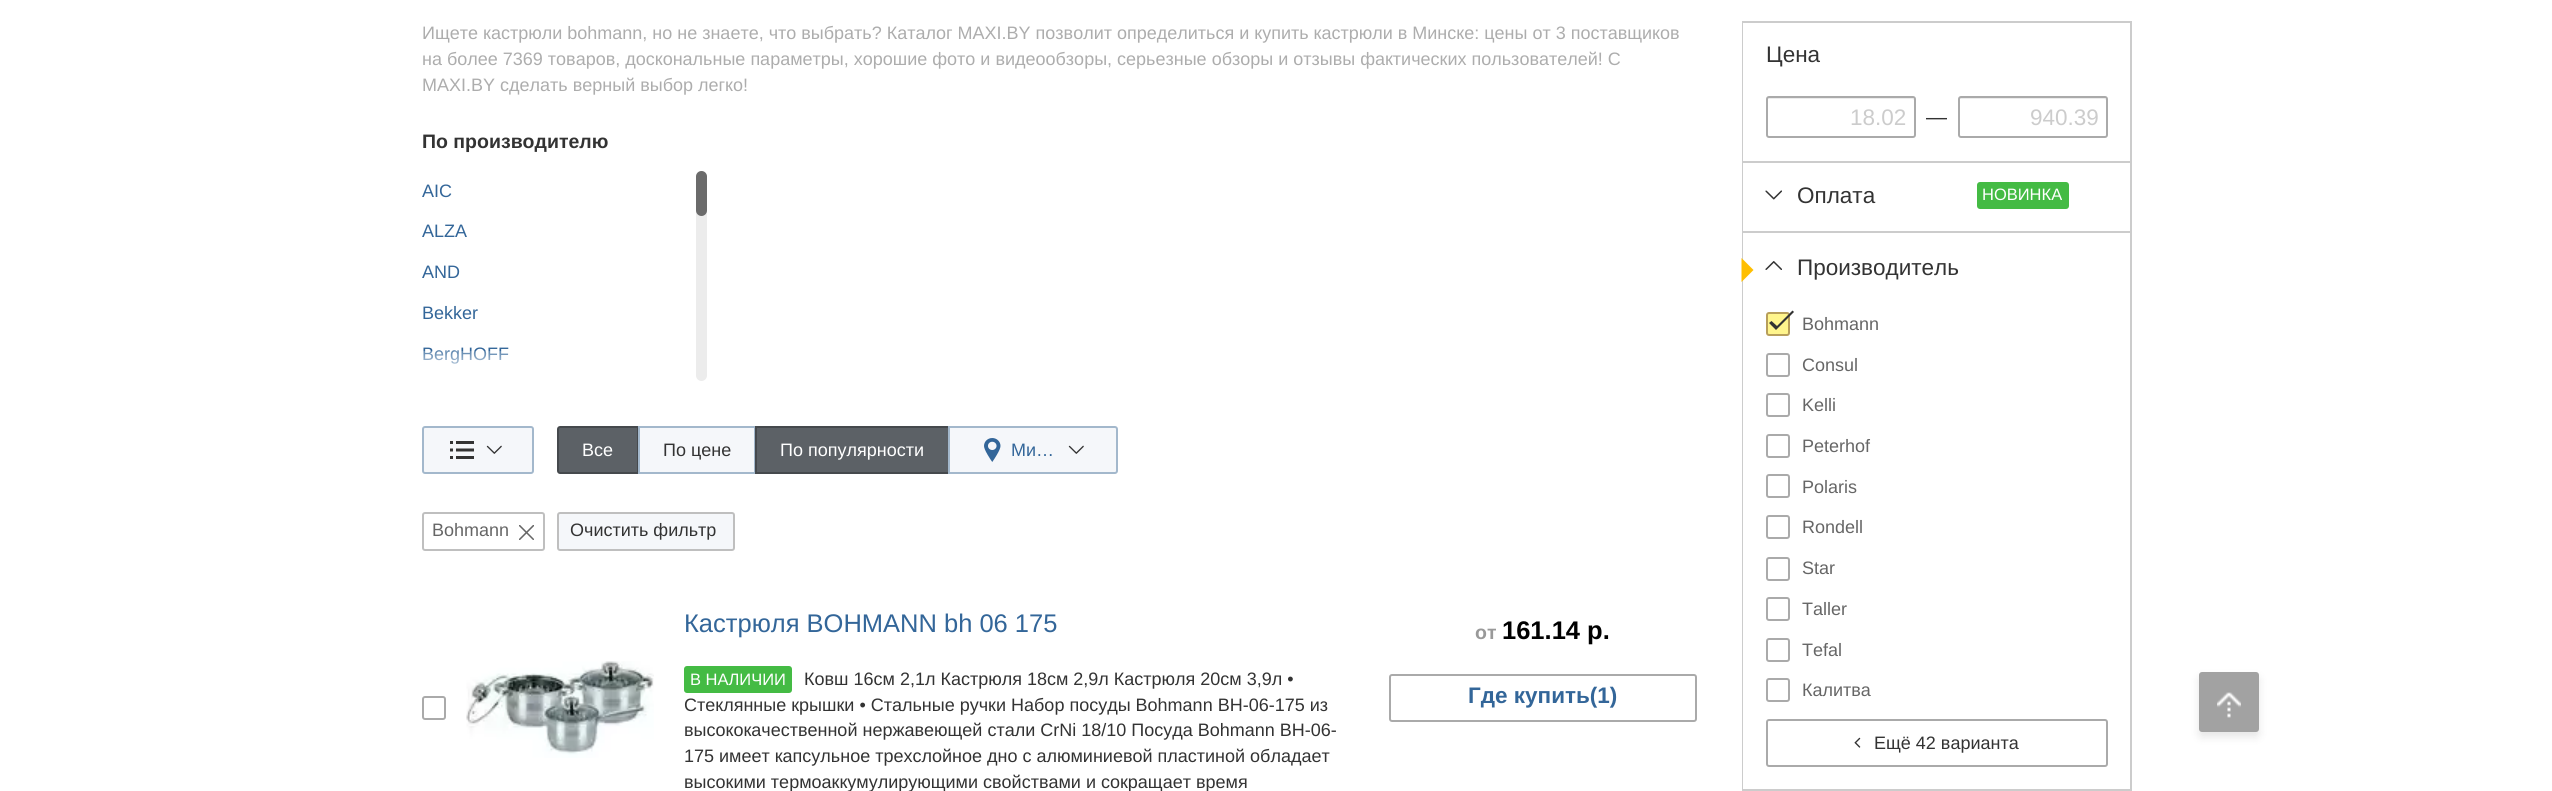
import math
import cairocffi as cairo

surface = cairo.ImageSurface(cairo.FORMAT_RGB24, 2552, 791)
ctx = cairo.Context(surface)
options = cairo.FontOptions()
options.set_hint_metrics(cairo.HINT_METRICS_OFF)
options.set_hint_style(cairo.HINT_STYLE_NONE)
ctx.set_font_options(options)
ctx.set_miter_limit(4)


def rgb(r, g, b):
    ctx.set_source_rgb(r / 255, g / 255, b / 255)


def face(family, size, italic, bold):
    ctx.select_font_face(family, cairo.FONT_SLANT_ITALIC if italic else cairo.FONT_SLANT_NORMAL, cairo.FONT_WEIGHT_BOLD if bold else cairo.FONT_WEIGHT_NORMAL)
    ctx.set_font_size(size)


def label(x, y, s):
    ctx.move_to(x, y)
    ctx.show_text(s)


def rect(x, y, w, h):
    ctx.rectangle(x, y, w, h)
    ctx.fill()


def rrect(x, y, w, h, r):
    ctx.new_sub_path()
    for i, (u, v) in enumerate([(x + w - r, y + h - r), (x + r, y + h - r), (x + r, y + r), (x + w - r, y + r)]):
        ctx.arc(u, v, r, i * math.pi / 2, (i + 1) * math.pi / 2)
    ctx.close_path()


def soft_shadow(x, y, w, h, r, blur, alpha):
    ctx.push_group_with_content(cairo.CONTENT_ALPHA)
    ctx.set_operator(cairo.OPERATOR_SOURCE)
    for i in range(15, -16, -2):
        e = blur * i / 6
        if min(w, h) + 2 * e > 0:
            ctx.set_source_rgba(0, 0, 0, alpha * math.erfc((i - 1) / 8.5) / 2)
            rrect(x - e, y - e, w + 2 * e, h + 2 * e, max(0, min(r + e + blur * .6, min(w, h) / 2 + e)))
            ctx.fill()
    ctx.mask(ctx.pop_group())


def image(path, x, y, w, h):
    ctx.save()
    ctx.set_source_surface(cairo.ImageSurface.create_from_png(path), x, y)
    ctx.rectangle(x, y, w, h)
    ctx.fill()
    ctx.restore()


rgb(255, 255, 255)
ctx.paint()
face('Liberation Sans', 18, 0, 0)
rgb(173, 173, 173)
label(422, 39, 'Ищете кастрюли bohmann, но не знаете, что выбрать? Каталог MAXI.BY позволит определиться и купить кастрюли в Минске: цены от 3 поставщиков')
label(422, 65, 'на более 7369 товаров, доскональные параметры, хорошие фото и видеообзоры, серьезные обзоры и отзывы фактических пользователей! С')
label(422, 91, 'MAXI.BY сделать верный выбор легко!')
face('Liberation Sans', 19.5, 0, 1)
rgb(51, 51, 51)
label(422, 148, 'По производителю')
face('Liberation Sans', 18, 0, 0)
rgb(51, 102, 153)
label(422, 197, 'AIC')
label(422, 237, 'ALZA')
label(422, 278, 'AND')
label(422, 319, 'Bekker')
label(422, 360, 'BergHOFF')
rgb(236, 236, 236)
rrect(696, 171, 11, 210, 5.5)
ctx.fill()
ctx.set_source_rgba(0.251, 0.251, 0.251, 0.75)
rrect(696, 171, 11, 45, 5.5)
ctx.fill()
image('image0.png', 423, 351, 85, 13)
rgb(245, 247, 250)
rrect(423, 427, 110, 46, 2)
ctx.fill_preserve()
rgb(163, 184, 204)
ctx.stroke()
image('image1.png', 450, 441, 24, 18)
image('image2.png', 486, 445, 16, 9)
rgb(92, 97, 102)
ctx.new_path()
ctx.move_to(560, 427)
ctx.line_to(638, 427)
ctx.line_to(638, 473)
ctx.line_to(560, 473)
ctx.curve_to(559, 473, 558, 472, 558, 471)
ctx.line_to(558, 429)
ctx.curve_to(558, 428, 559, 427, 560, 427)
ctx.close_path()
ctx.fill_preserve()
rgb(69, 73, 77)
ctx.stroke()
rgb(255, 255, 255)
label(582, 456, 'Все')
rgb(245, 247, 250)
ctx.rectangle(639, 427, 116, 46)
ctx.fill_preserve()
rgb(163, 184, 204)
ctx.stroke()
rgb(51, 51, 51)
label(663, 456, 'По цене')
rgb(92, 97, 102)
ctx.rectangle(756, 427, 193, 46)
ctx.fill_preserve()
rgb(69, 73, 77)
ctx.stroke()
rgb(255, 255, 255)
label(780, 456, 'По популярности')
rgb(245, 247, 250)
ctx.new_path()
ctx.move_to(949, 427)
ctx.line_to(1115, 427)
ctx.curve_to(1116, 427, 1117, 428, 1117, 429)
ctx.line_to(1117, 471)
ctx.curve_to(1117, 472, 1116, 473, 1115, 473)
ctx.line_to(949, 473)
ctx.close_path()
ctx.fill_preserve()
rgb(163, 184, 204)
ctx.stroke()
image('image3.png', 984, 438, 17, 24)
rgb(51, 102, 153)
label(1011, 456, 'Ми…')
image('image2.png', 1068, 445, 16, 9)
rrect(423, 513, 121, 37, 2)
rgb(191, 191, 191)
ctx.stroke()
rgb(102, 102, 102)
label(432, 536, 'Bohmann')
image('image4.png', 519, 525, 15, 15)
rgb(245, 247, 250)
rrect(558, 513, 176, 37, 2)
ctx.fill_preserve()
rgb(191, 191, 191)
ctx.stroke()
rgb(51, 51, 51)
label(570, 536, 'Очистить фильтр')
rrect(423, 697, 22, 22, 2)
rgb(170, 170, 170)
ctx.stroke()
image('image5.png', 466, 661, 188, 97)
face('Liberation Sans', 25.5, 0, 0)
rgb(51, 102, 153)
label(684, 632, 'Кастрюля BOHMANN bh 06 175')
rgb(68, 187, 68)
rrect(684, 666, 108, 27, 3)
ctx.fill()
face('Liberation Sans', 16.5, 0, 0)
rgb(255, 255, 255)
label(690, 685, 'В НАЛИЧИИ')
face('Liberation Sans', 18, 0, 0)
rgb(51, 51, 51)
label(804, 685, 'Ковш 16см 2,1л Кастрюля 18см 2,9л Кастрюля 20см 3,9л •')
label(684, 711, 'Стеклянные крышки • Стальные ручки Набор посуды Bohmann BH-06-175 из')
label(684, 736, 'высококачественной нержавеющей стали CrNi 18/10 Посуда Bohmann BH-06-')
label(684, 762, '175 имеет капсульное трехслойное дно с алюминиевой пластиной обладает')
label(684, 788, 'высокими термоаккумулирующими свойствами и сокращает время')
face('Liberation Sans', 19.5, 0, 1)
rgb(153, 153, 153)
label(1475, 639, 'от')
face('Liberation Sans', 25.5, 0, 1)
rgb(0, 0, 0)
label(1502, 639, '161.14 р.')
rrect(1390, 675, 306, 46, 2)
rgb(170, 170, 170)
ctx.stroke()
face('Liberation Sans', 22.5, 0, 1)
rgb(51, 102, 153)
label(1468, 703, 'Где купить(1)')
ctx.rectangle(1743, 22, 388, 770)
rgb(204, 204, 204)
ctx.stroke()
rgb(255, 255, 255)
rect(1743, 23, 1, 138)
face('Liberation Sans', 22.5, 0, 0)
rgb(51, 51, 51)
label(1766, 62, 'Цена')
rgb(236, 236, 236)
ctx.new_path()
ctx.move_to(1768, 99)
ctx.line_to(1912, 99)
ctx.curve_to(1913, 99, 1914, 100, 1914, 100)
ctx.line_to(1914, 99)
ctx.line_to(1913, 98)
ctx.line_to(1768, 98)
ctx.curve_to(1767, 98, 1767, 99, 1767, 100)
ctx.close_path()
ctx.fill()
rrect(1767, 97, 148, 40, 2)
rgb(170, 170, 170)
ctx.stroke()
rgb(204, 204, 204)
label(1850, 125, '18.02')
face('Liberation Sans', 21, 0, 0)
rgb(51, 51, 51)
label(1926, 124, '—')
rgb(236, 236, 236)
ctx.new_path()
ctx.move_to(1960, 99)
ctx.line_to(2104, 99)
ctx.curve_to(2105, 99, 2106, 100, 2106, 100)
ctx.line_to(2106, 99)
ctx.line_to(2105, 98)
ctx.line_to(1960, 98)
ctx.curve_to(1959, 98, 1959, 99, 1959, 100)
ctx.close_path()
ctx.fill()
rrect(1959, 97, 148, 40, 2)
rgb(170, 170, 170)
ctx.stroke()
face('Liberation Sans', 22.5, 0, 0)
rgb(204, 204, 204)
label(2030, 125, '940.39')
rgb(255, 255, 255)
rect(1743, 163, 1, 68)
rgb(204, 204, 204)
rect(1743, 161, 387, 2)
image('image6.png', 1765, 190, 17, 10)
rgb(51, 51, 51)
label(1797, 203, 'Оплата')
rgb(68, 187, 68)
rrect(1977, 182, 92, 27, 3)
ctx.fill()
face('Liberation Sans', 16.5, 0, 0)
rgb(255, 255, 255)
label(1982, 200, 'НОВИНКА')
rect(1743, 233, 1, 556)
rgb(204, 204, 204)
rect(1743, 231, 387, 2)
rgb(255, 191, 0)
ctx.new_path()
ctx.move_to(1741.5, 282)
ctx.line_to(1741.5, 258)
ctx.line_to(1753.5, 270)
ctx.close_path()
ctx.fill()
image('image7.png', 1765, 261, 17, 9)
face('Liberation Sans', 22.5, 0, 0)
rgb(51, 51, 51)
label(1797, 275, 'Производитель')
rgb(255, 245, 140)
rrect(1767, 313, 22, 22, 2)
ctx.fill_preserve()
rgb(184, 159, 91)
ctx.stroke()
rgb(51, 51, 51)
ctx.new_path()
ctx.move_to(1792.5, 310.5)
ctx.line_to(1777, 326)
ctx.line_to(1771.5, 321)
ctx.line_to(1769, 323)
ctx.line_to(1776, 330)
ctx.line_to(1794, 312)
ctx.close_path()
ctx.fill()
face('Liberation Sans', 18, 0, 0)
rgb(102, 102, 102)
label(1802, 330, 'Bohmann')
rrect(1767, 354, 22, 22, 2)
rgb(170, 170, 170)
ctx.stroke()
rgb(102, 102, 102)
label(1802, 371, 'Consul')
rrect(1767, 394, 22, 22, 2)
rgb(170, 170, 170)
ctx.stroke()
rgb(102, 102, 102)
label(1802, 411, 'Kelli')
rrect(1767, 435, 22, 22, 2)
rgb(170, 170, 170)
ctx.stroke()
rgb(102, 102, 102)
label(1802, 452, 'Peterhof')
rrect(1767, 475, 22, 22, 2)
rgb(170, 170, 170)
ctx.stroke()
rgb(102, 102, 102)
label(1802, 493, 'Polaris')
rrect(1767, 516, 22, 22, 2)
rgb(170, 170, 170)
ctx.stroke()
rgb(102, 102, 102)
label(1802, 533, 'Rondell')
rrect(1767, 558, 22, 22, 2)
rgb(170, 170, 170)
ctx.stroke()
rgb(102, 102, 102)
label(1802, 574, 'Star')
rrect(1767, 598, 22, 22, 2)
rgb(170, 170, 170)
ctx.stroke()
rgb(102, 102, 102)
label(1802, 615, 'Taller')
rrect(1767, 639, 22, 22, 2)
rgb(170, 170, 170)
ctx.stroke()
rgb(102, 102, 102)
label(1802, 656, 'Tefal')
rrect(1767, 679, 22, 22, 2)
rgb(170, 170, 170)
ctx.stroke()
rgb(102, 102, 102)
label(1802, 696, 'Калитва')
rrect(1767, 720, 340, 46, 2)
rgb(170, 170, 170)
ctx.stroke()
image('image8.png', 1854, 737, 7, 11)
rgb(51, 51, 51)
label(1874, 749, 'Ещё 42 варианта')
rgb(204, 204, 204)
rect(1743, 789, 387, 2)
rgb(0, 0, 0)
soft_shadow(2199, 677, 60, 60, 3, 4.5, 0.1)
rgb(162, 162, 162)
rrect(2199, 672, 60, 60, 3)
ctx.fill()
image('image9.png', 2217, 692, 24, 26)
surface.write_to_png('render.png')
